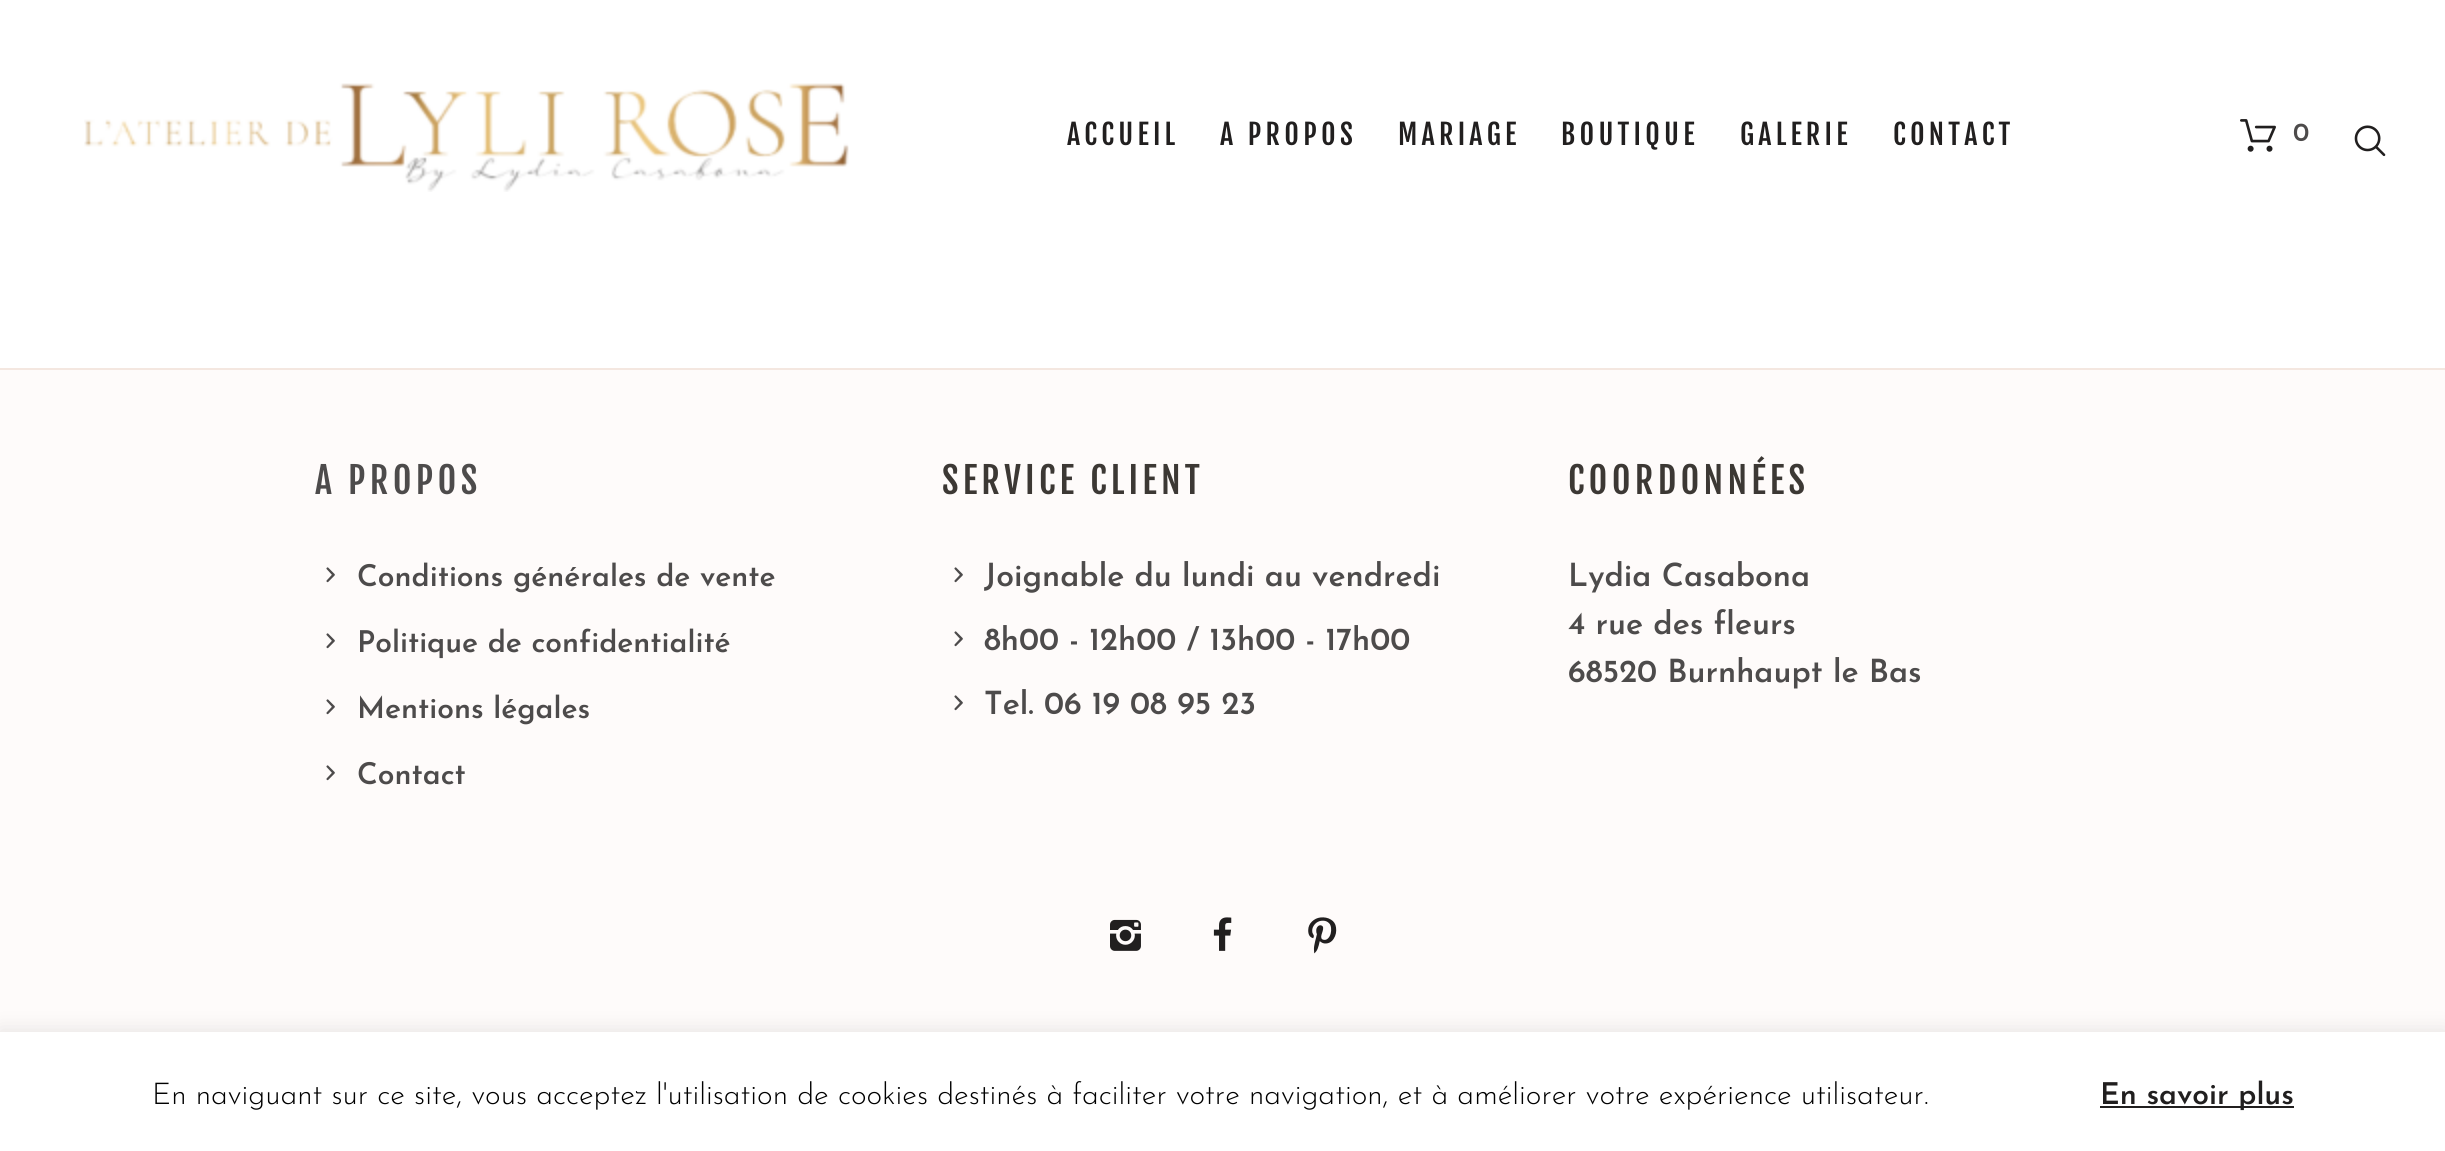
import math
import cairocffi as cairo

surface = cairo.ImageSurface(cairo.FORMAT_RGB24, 2445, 1151)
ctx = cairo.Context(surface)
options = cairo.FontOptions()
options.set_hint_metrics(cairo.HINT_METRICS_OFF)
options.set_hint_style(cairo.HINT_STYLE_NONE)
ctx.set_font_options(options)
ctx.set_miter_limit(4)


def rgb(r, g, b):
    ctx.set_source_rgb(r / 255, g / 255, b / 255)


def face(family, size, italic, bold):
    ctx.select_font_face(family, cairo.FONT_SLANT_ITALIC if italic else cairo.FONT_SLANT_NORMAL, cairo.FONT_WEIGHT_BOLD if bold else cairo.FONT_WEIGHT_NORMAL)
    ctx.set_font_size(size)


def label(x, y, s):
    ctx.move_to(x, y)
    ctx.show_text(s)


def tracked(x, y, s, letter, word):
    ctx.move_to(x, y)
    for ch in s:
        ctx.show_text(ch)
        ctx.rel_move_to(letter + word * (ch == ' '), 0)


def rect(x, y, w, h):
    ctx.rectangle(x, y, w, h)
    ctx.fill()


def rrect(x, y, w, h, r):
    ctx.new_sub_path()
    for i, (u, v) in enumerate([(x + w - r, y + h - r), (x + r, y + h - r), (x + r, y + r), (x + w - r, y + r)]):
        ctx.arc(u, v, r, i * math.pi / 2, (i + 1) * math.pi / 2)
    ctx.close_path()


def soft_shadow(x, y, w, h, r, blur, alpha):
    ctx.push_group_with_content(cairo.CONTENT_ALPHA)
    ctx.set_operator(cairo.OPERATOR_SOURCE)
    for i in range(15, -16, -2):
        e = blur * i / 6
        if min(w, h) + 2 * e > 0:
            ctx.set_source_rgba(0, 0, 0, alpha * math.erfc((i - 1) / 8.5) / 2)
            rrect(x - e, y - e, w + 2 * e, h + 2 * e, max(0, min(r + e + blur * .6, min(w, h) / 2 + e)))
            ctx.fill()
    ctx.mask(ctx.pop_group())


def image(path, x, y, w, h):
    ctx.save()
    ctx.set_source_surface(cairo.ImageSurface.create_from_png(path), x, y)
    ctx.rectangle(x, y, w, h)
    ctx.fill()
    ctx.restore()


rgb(255, 255, 255)
ctx.paint()
image('image0.png', 84, 83, 765, 109)
face('Fjalla One', 28, 0, 0)
rgb(33, 31, 31)
tracked(1067, 145, 'ACCUEIL', 4.25, 0)
tracked(1220, 145, 'A PROPOS', 4.25, 0)
tracked(1398, 145, 'MARIAGE', 4.25, 0)
tracked(1561, 145, 'BOUTIQUE', 4.25, 0)
tracked(1740, 145, 'GALERIE', 4.25, 0)
tracked(1893, 145, 'CONTACT', 4.25, 0)
image('image1.png', 2240, 119, 36, 33)
face('Josefin Sans SemiBold', 26, 0, 0)
rgb(77, 75, 75)
label(2293, 141, '0')
image('image2.png', 2354, 125, 32, 32)
rgb(254, 251, 250)
rect(0, 370, 2445, 662)
rgb(244, 231, 224)
rect(0, 368, 2445, 2)
face('Fjalla One', 36, 0, 0)
rgb(77, 75, 75)
tracked(315, 494, 'A PROPOS', 4.25, 0)
image('image3.png', 326, 567, 9, 16)
face('Josefin Sans SemiBold', 30, 0, 0)
label(357, 586, 'Conditions générales de vente')
image('image3.png', 326, 633, 9, 16)
label(357, 652, 'Politique de confidentialité')
image('image3.png', 326, 699, 9, 16)
label(357, 718, 'Mentions légales')
image('image3.png', 326, 765, 9, 16)
label(357, 784, 'Contact')
face('Fjalla One', 36, 0, 0)
rgb(60, 56, 52)
tracked(942, 494, 'SERVICE CLIENT', 4.25, 0)
image('image3.png', 954, 567, 9, 16)
face('Josefin Sans SemiBold', 32, 0, 0)
rgb(77, 75, 75)
label(984, 586, 'Joignable du lundi au vendredi')
image('image3.png', 954, 631, 9, 16)
label(984, 650, '8h00 - 12h00 / 13h00 - 17h00')
image('image3.png', 954, 695, 9, 16)
label(984, 714, 'Tel. 06 19 08 95 23')
face('Fjalla One', 36, 0, 0)
rgb(60, 56, 52)
tracked(1568, 494, 'COORDONNÉES', 4.25, 0)
face('Josefin Sans SemiBold', 32, 0, 0)
rgb(77, 75, 75)
label(1568, 586, 'Lydia Casabona')
label(1568, 634, '4 rue des fleurs')
label(1568, 682, '68520 Burnhaupt le Bas')
image('image4.png', 1110, 919, 31, 32)
image('image5.png', 1213, 917, 19, 34)
image('image6.png', 1308, 917, 29, 37)
rgb(172, 171, 171)
soft_shadow(0, 1030, 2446, 120, 0, 10, 0.3)
rgb(255, 255, 255)
rect(0, 1032, 2445, 119)
face('Josefin Sans Light', 30, 0, 0)
rgb(0, 0, 0)
label(152, 1104, 'En naviguant sur ce site, vous acceptez l\'utilisation de cookies destinés à faciliter votre navigation, et à améliorer votre expérience utilisateur.')
rgb(33, 31, 31)
rect(2100, 1106, 194, 2)
face('Josefin Sans SemiBold', 30, 0, 0)
label(2100, 1104, 'En savoir plus')
surface.write_to_png('render.png')
